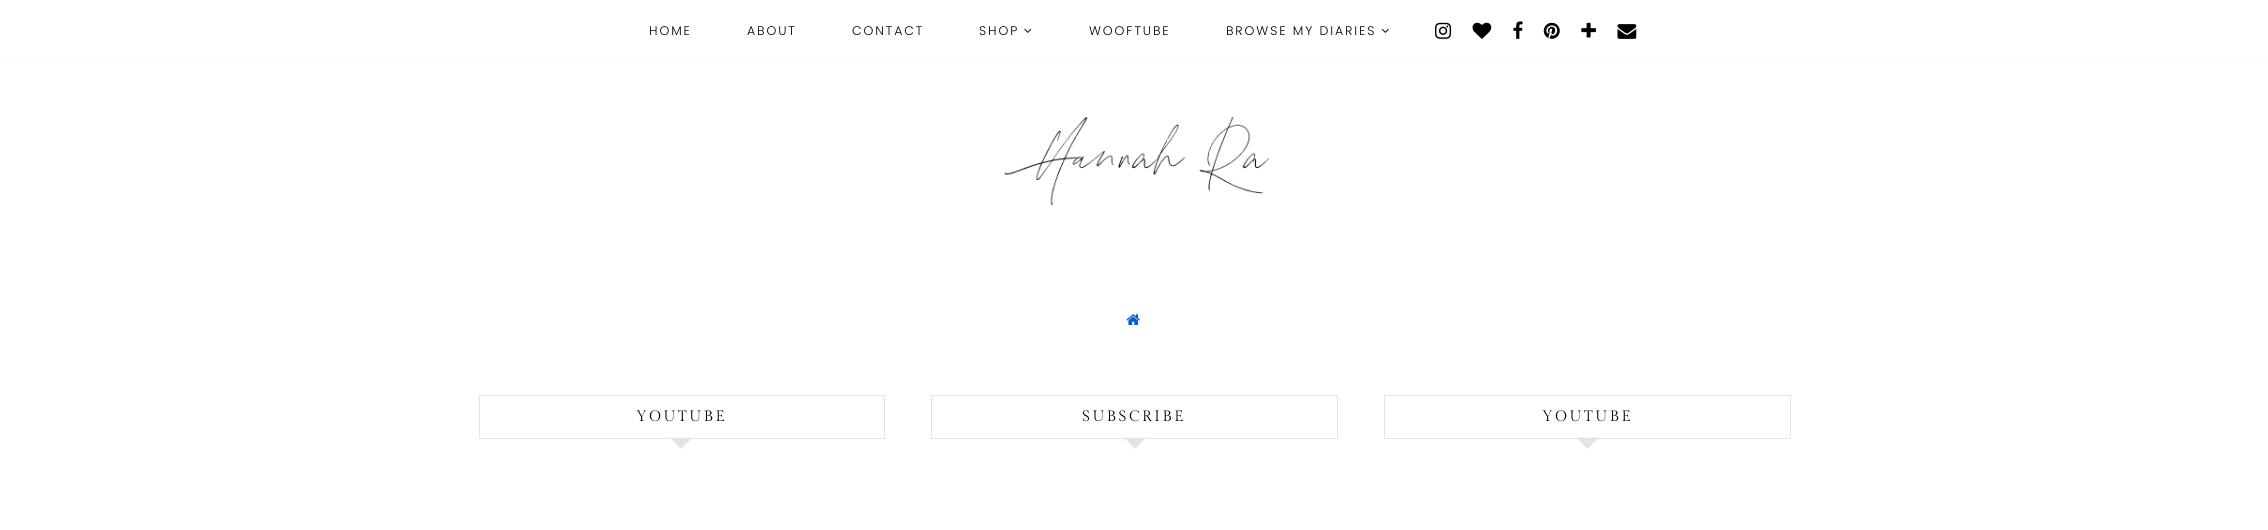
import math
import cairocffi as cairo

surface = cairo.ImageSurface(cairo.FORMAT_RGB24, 2268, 530)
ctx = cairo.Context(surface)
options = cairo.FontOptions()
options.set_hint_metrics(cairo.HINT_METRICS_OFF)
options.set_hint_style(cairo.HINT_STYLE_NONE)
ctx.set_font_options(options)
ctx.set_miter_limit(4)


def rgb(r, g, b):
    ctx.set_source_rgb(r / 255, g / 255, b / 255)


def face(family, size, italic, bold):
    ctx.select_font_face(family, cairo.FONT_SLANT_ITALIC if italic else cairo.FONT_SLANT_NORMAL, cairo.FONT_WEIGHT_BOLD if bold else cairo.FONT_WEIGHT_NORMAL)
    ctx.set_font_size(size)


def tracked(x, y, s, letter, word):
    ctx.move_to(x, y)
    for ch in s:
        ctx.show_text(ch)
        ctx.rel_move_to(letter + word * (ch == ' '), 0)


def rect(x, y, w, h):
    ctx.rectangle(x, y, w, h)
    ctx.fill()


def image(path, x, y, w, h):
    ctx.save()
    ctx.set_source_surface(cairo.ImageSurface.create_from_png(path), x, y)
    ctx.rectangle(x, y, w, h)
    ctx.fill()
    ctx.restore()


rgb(255, 255, 255)
ctx.paint()
rgb(249, 249, 249)
rect(0, 63, 2268, 1)
face('Poppins Light', 12.5, 0, 0)
rgb(0, 0, 0)
tracked(649, 35, 'HOME', 1.9, 0)
tracked(747, 35, 'ABOUT', 1.9, 0)
tracked(852, 35, 'CONTACT', 1.9, 0)
tracked(979, 35, 'SHOP', 1.9, 0)
image('image0.png', 1024, 28, 8, 5)
tracked(1089, 35, 'WOOFTUBE', 1.9, 0)
tracked(1226, 35, 'BROWSE MY DIARIES', 1.9, 0)
image('image1.png', 1381, 28, 8, 5)
image('image2.png', 1435, 22, 17, 17)
image('image3.png', 1472, 22, 20, 17)
image('image4.png', 1513, 21, 10, 18)
image('image5.png', 1543, 22, 17, 17)
image('image6.png', 1581, 22, 15, 16)
image('image7.png', 1617, 24, 20, 15)
image('image8.png', 1004, 116, 265, 90)
image('image9.png', 1126, 314, 14, 11)
ctx.rectangle(479.5, 395.5, 405, 43)
rgb(229, 228, 228)
ctx.set_line_width(1)
ctx.stroke()
face('Gilda Display', 15, 0, 0)
rgb(0, 0, 0)
tracked(636, 421, 'YOUTUBE', 2.5, 0)
rgb(229, 228, 228)
ctx.new_path()
ctx.move_to(670, 437.5)
ctx.line_to(692.5, 437.5)
ctx.line_to(681, 449)
ctx.close_path()
ctx.fill()
ctx.rectangle(931.5, 395.5, 406, 43)
ctx.stroke()
rgb(0, 0, 0)
tracked(1082, 421, 'SUBSCRIBE', 2.5, 0)
rgb(229, 228, 228)
ctx.new_path()
ctx.move_to(1124, 437.5)
ctx.line_to(1146, 437.5)
ctx.line_to(1135, 449)
ctx.close_path()
ctx.fill()
ctx.rectangle(1384.5, 395.5, 406, 43)
ctx.stroke()
rgb(0, 0, 0)
tracked(1542, 421, 'YOUTUBE', 2.5, 0)
rgb(229, 228, 228)
ctx.new_path()
ctx.move_to(1576, 437.5)
ctx.line_to(1599, 437.5)
ctx.line_to(1587.5, 449)
ctx.close_path()
ctx.fill()
surface.write_to_png('render.png')
